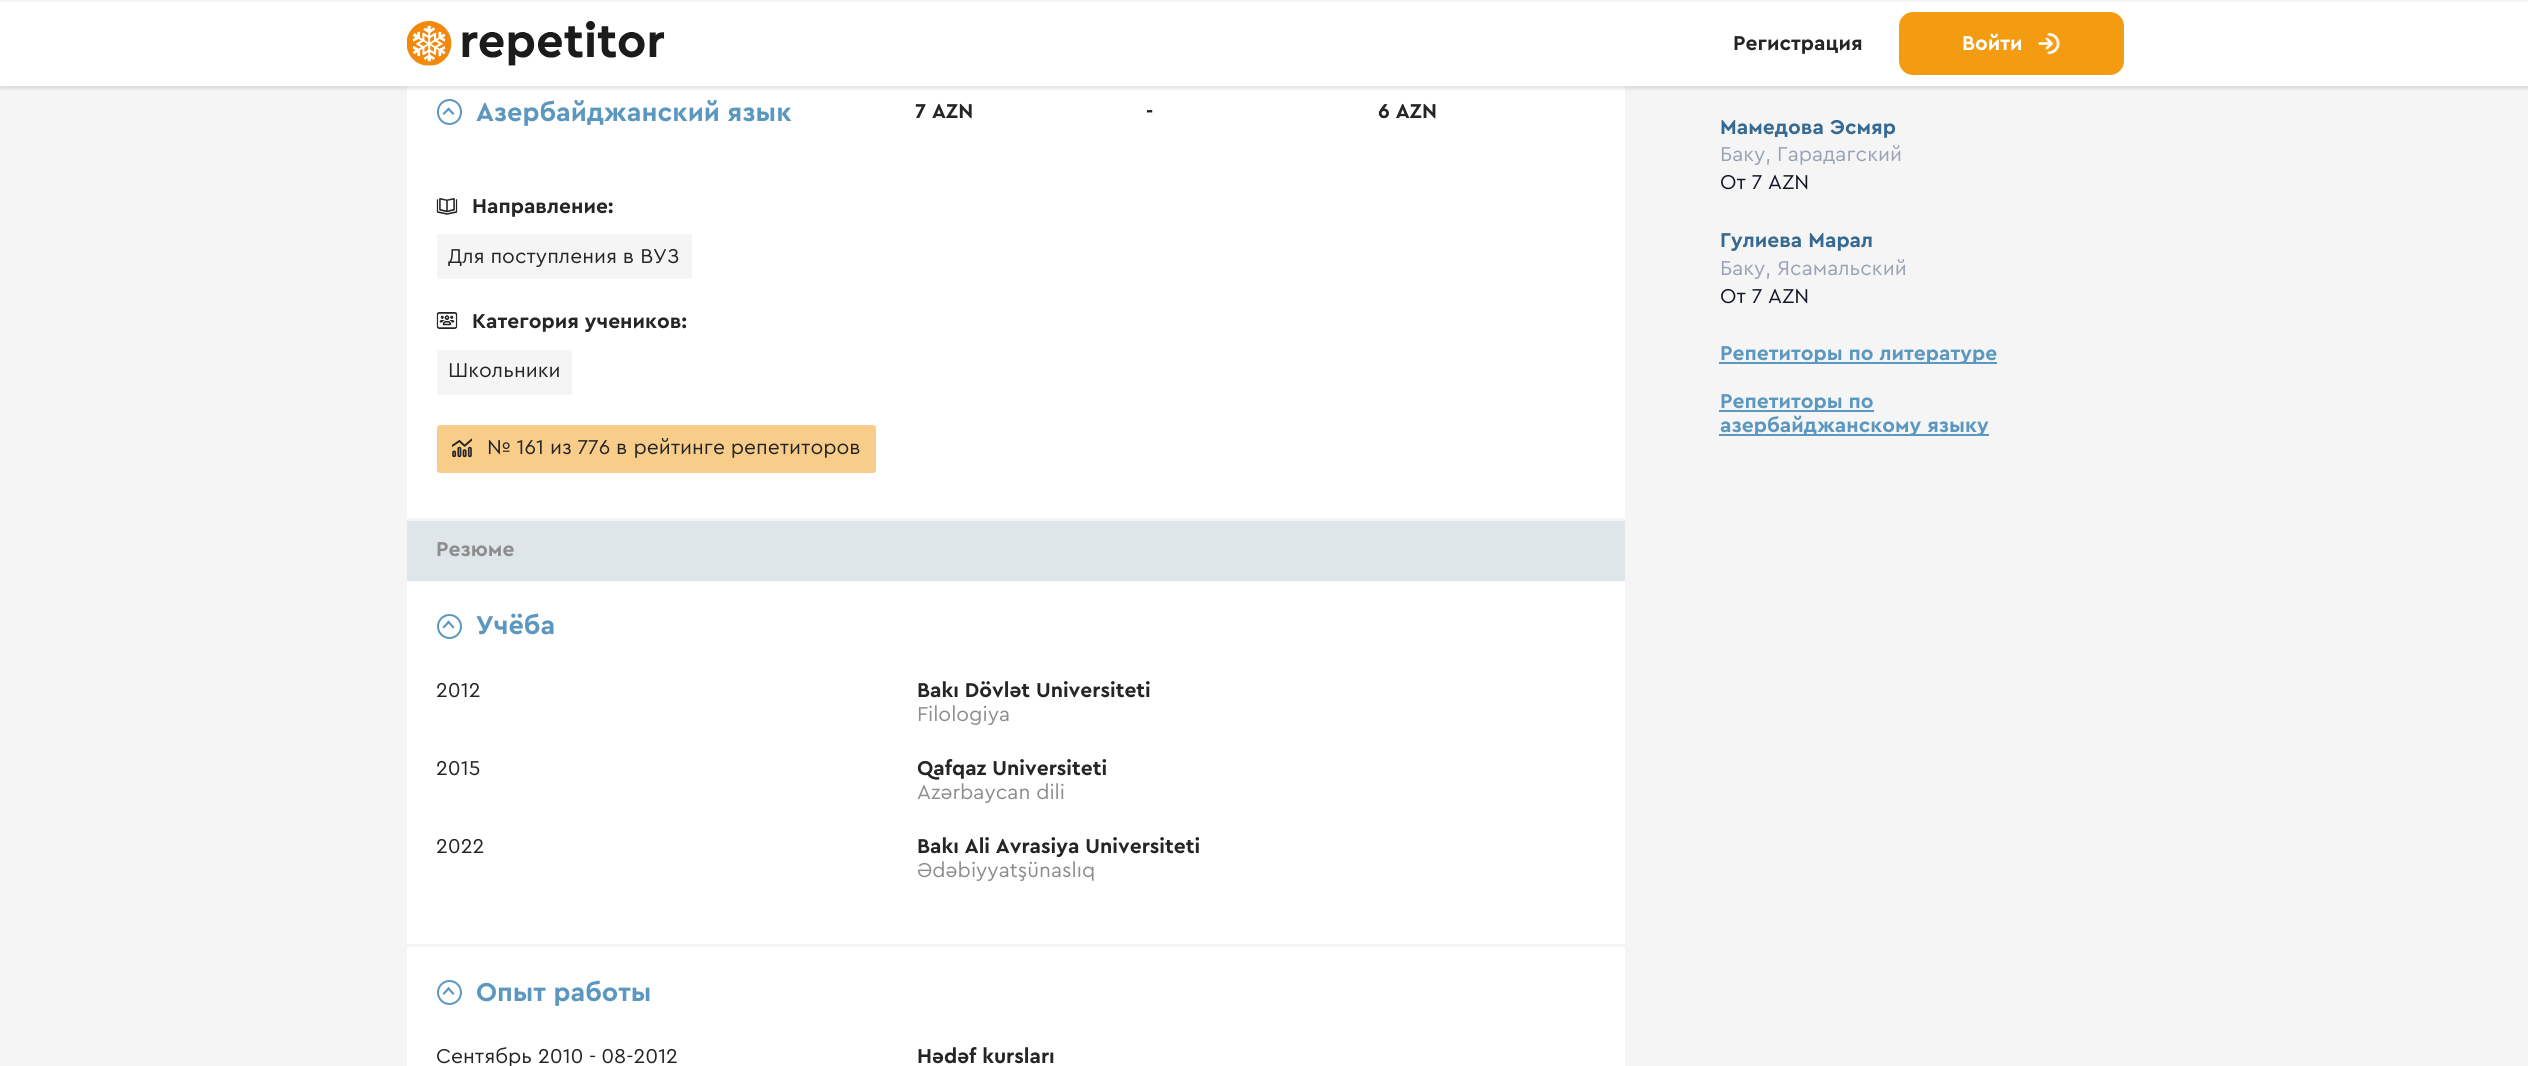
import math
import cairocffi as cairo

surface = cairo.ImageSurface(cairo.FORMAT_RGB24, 2528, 1066)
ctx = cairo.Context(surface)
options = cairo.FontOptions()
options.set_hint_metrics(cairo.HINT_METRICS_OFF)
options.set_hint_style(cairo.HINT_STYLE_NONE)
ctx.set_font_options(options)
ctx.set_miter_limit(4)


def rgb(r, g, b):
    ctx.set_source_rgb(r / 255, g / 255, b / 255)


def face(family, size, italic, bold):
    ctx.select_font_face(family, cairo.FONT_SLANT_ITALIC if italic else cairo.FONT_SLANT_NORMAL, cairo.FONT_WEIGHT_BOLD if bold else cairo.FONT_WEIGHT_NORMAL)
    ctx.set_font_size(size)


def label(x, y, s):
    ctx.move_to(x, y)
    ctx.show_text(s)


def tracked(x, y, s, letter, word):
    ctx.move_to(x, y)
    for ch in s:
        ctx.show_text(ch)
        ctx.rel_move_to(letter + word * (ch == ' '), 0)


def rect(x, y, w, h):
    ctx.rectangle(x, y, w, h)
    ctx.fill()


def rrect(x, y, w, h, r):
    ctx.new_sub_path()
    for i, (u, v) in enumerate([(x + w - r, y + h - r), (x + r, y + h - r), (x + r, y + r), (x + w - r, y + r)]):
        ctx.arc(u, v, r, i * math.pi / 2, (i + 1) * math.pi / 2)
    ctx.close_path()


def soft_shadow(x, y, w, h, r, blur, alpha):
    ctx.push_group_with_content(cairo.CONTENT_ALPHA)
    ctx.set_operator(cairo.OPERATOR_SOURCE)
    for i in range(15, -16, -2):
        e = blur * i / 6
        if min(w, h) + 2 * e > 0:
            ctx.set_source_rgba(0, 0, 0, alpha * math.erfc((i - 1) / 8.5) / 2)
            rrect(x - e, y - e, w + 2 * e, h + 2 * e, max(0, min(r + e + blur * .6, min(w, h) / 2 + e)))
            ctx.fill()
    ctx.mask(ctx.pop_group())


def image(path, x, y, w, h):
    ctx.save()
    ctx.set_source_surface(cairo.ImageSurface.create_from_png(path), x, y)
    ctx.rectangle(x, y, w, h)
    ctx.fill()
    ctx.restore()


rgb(245, 245, 245)
ctx.paint()
rgb(255, 255, 255)
rect(407, 86, 1218, 980)
rgb(153, 153, 153)
soft_shadow(0, -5, 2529, 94, 0, 1.5, 0.26)
rgb(255, 255, 255)
rect(0, 2, 2528, 84)
rgb(245, 245, 245)
rect(0, 0, 2528, 2)
image('image0.png', 407, 21, 258, 45)
face('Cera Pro', 21, 0, 1)
rgb(37, 37, 37)
label(1733, 50, 'Регистрация')
rgb(243, 156, 18)
rrect(1899, 12, 225, 63, 14)
ctx.fill()
rgb(255, 255, 255)
label(1962, 50, 'Войти')
image('image1.png', 2038, 33, 22, 21)
rgb(245, 245, 245)
rect(407, 518, 1218, 3)
rrect(438, 100, 23, 24, 11.5)
rgb(92, 151, 191)
ctx.stroke()
ctx.new_path()
ctx.move_to(448.5, 107.5)
ctx.line_to(454.5, 113.5)
ctx.line_to(453, 115)
ctx.line_to(447, 109)
ctx.close_path()
ctx.fill()
ctx.new_path()
ctx.move_to(442.5, 113.5)
ctx.line_to(448.5, 107.5)
ctx.line_to(450, 109)
ctx.line_to(444, 115)
ctx.close_path()
ctx.fill()
face('Cera Pro', 27, 0, 1)
label(476, 121, 'Азербайджанский язык')
face('Cera Pro', 21, 0, 1)
rgb(37, 37, 37)
label(915, 118, '7 AZN')
label(1146, 118, '-')
label(1378, 118, '6 AZN')
image('image2.png', 436, 198, 22, 17)
label(472, 213, 'Направление:')
rgb(245, 245, 245)
rect(437, 234, 255, 45)
face('Cera Pro', 21, 0, 0)
rgb(37, 37, 37)
label(448, 263, 'Для поступления в ВУЗ')
image('image3.png', 436, 312, 22, 17)
face('Cera Pro', 21, 0, 1)
label(472, 328, 'Категория учеников:')
rgb(245, 245, 245)
rect(437, 350, 135, 45)
face('Cera Pro', 21, 0, 0)
rgb(37, 37, 37)
label(448, 377, 'Школьники')
rgb(248, 205, 137)
rrect(437, 425, 439, 48, 3)
ctx.fill()
image('image4.png', 451, 438, 22, 20)
rgb(37, 37, 37)
label(487, 454, '№ 161 из 776 в рейтинге репетиторов')
rgb(222, 230, 233)
rect(407, 521, 1218, 60)
face('Cera Pro', 21, 0, 1)
rgb(141, 141, 141)
label(436, 556, 'Резюме')
rgb(245, 245, 245)
rect(407, 944, 1218, 3)
ctx.new_path()
ctx.arc(449.5, 626.5, 11.5, 0, 2 * math.pi)
rgb(92, 151, 191)
ctx.stroke()
ctx.new_path()
ctx.move_to(448.5, 620.5)
ctx.line_to(454.5, 627)
ctx.line_to(453, 628.5)
ctx.line_to(447, 622)
ctx.close_path()
ctx.fill()
ctx.new_path()
ctx.move_to(442.5, 627)
ctx.line_to(448.5, 620.5)
ctx.line_to(450, 622)
ctx.line_to(444, 628.5)
ctx.close_path()
ctx.fill()
face('Cera Pro', 27, 0, 1)
label(476, 634, 'Учёба')
face('Cera Pro', 21, 0, 0)
rgb(37, 37, 37)
label(436, 697, '2012')
face('Cera Pro', 21, 0, 1)
label(917, 697, 'Bakı Dövlət Universiteti')
face('Cera Pro', 21, 0, 0)
rgb(141, 141, 141)
label(917, 721, 'Filologiya')
rgb(37, 37, 37)
label(436, 775, '2015')
face('Cera Pro', 21, 0, 1)
label(917, 775, 'Qafqaz Universiteti')
face('Cera Pro', 21, 0, 0)
rgb(141, 141, 141)
label(917, 799, 'Azərbaycan dili')
rgb(37, 37, 37)
label(436, 853, '2022')
face('Cera Pro', 21, 0, 1)
label(917, 853, 'Bakı Ali Avrasiya Universiteti')
face('Cera Pro', 21, 0, 0)
rgb(141, 141, 141)
label(917, 877, 'Ədəbiyyatşünaslıq')
ctx.new_path()
ctx.arc(449.5, 992.5, 11.5, 0, 2 * math.pi)
rgb(92, 151, 191)
ctx.stroke()
ctx.new_path()
ctx.move_to(448.5, 987)
ctx.line_to(454.5, 993.5)
ctx.line_to(453, 995)
ctx.line_to(447, 988.5)
ctx.close_path()
ctx.fill()
ctx.new_path()
ctx.move_to(442.5, 993.5)
ctx.line_to(448.5, 987)
ctx.line_to(450, 988.5)
ctx.line_to(444, 995)
ctx.close_path()
ctx.fill()
face('Cera Pro', 27, 0, 1)
label(476, 1001, 'Опыт работы')
face('Cera Pro', 21, 0, 0)
rgb(37, 37, 37)
label(436, 1063, 'Сентябрь 2010')
tracked(589, 1063, '- 08-2012', 0, -1)
face('Cera Pro', 21, 0, 1)
label(917, 1063, 'Hədəf kursları')
rgb(54, 106, 147)
label(1720, 134, 'Мамедова Эсмяр')
face('Cera Pro', 21, 0, 0)
rgb(152, 162, 179)
label(1720, 161, 'Баку, Гарадагский')
rgb(16, 24, 40)
label(1720, 189, 'От 7 AZN')
face('Cera Pro', 21, 0, 1)
rgb(54, 106, 147)
label(1720, 247, 'Гулиева Марал')
face('Cera Pro', 21, 0, 0)
rgb(152, 162, 179)
label(1720, 275, 'Баку, Ясамальский')
rgb(16, 24, 40)
label(1720, 303, 'От 7 AZN')
rgb(92, 151, 191)
rect(1719, 362, 278, 2)
face('Cera Pro', 21, 0, 1)
label(1720, 360, 'Репетиторы по литературе')
rect(1719, 410, 155, 2)
label(1720, 408, 'Репетиторы по')
rect(1719, 434, 270, 2)
label(1720, 432, 'азербайджанскому языку')
surface.write_to_png('render.png')
